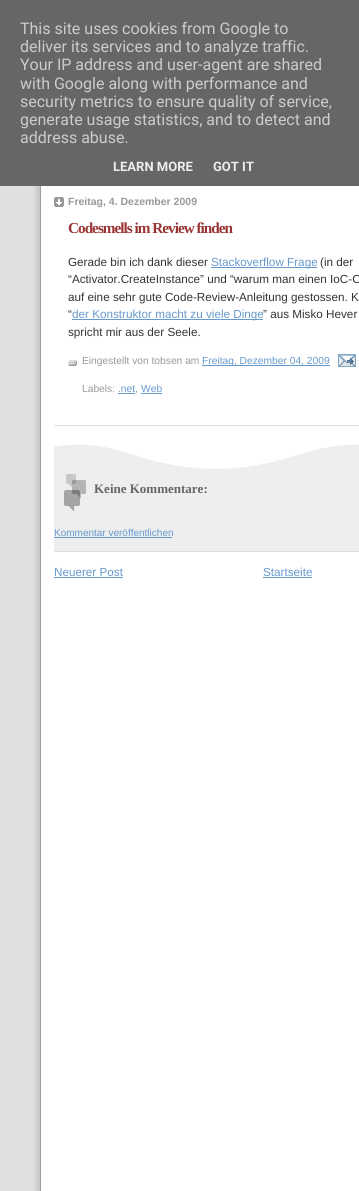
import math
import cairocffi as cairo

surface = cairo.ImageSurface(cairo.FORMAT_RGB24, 359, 1191)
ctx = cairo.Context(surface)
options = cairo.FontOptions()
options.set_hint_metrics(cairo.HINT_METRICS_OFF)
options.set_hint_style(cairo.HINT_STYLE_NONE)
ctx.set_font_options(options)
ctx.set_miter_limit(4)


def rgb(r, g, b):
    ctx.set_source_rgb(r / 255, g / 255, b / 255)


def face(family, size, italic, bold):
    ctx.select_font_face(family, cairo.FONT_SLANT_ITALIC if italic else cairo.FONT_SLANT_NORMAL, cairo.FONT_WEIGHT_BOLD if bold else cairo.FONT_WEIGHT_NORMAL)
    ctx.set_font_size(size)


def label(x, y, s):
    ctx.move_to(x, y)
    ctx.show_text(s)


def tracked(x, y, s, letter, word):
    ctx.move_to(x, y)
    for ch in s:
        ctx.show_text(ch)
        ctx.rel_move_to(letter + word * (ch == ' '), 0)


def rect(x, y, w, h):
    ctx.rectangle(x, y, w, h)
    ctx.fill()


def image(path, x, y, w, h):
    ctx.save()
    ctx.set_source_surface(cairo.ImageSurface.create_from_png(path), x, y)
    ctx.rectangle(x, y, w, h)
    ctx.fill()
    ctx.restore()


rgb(224, 224, 224)
ctx.paint()
rgb(102, 102, 102)
rect(0, 0, 359, 186)
face('Roboto', 16, 0, 0)
rgb(204, 204, 204)
label(20, 34, 'This site uses cookies from Google to')
label(20, 52, 'deliver its services and to analyze traffic.')
label(20, 70, 'Your IP address and user-agent are shared')
label(20, 89, 'with Google along with performance and')
label(20, 107, 'security metrics to ensure quality of service,')
label(20, 125, 'generate usage statistics, and to detect and')
label(20, 143, 'address abuse.')
face('Roboto', 13, 0, 1)
rgb(238, 238, 238)
label(113, 171, 'LEARN MORE')
label(213, 171, 'GOT IT')
image('image0.png', 34, 186, 325, 1005)
image('image1.png', 54, 197, 10, 10)
face('Liberation Sans', 10.5, 0, 1)
rgb(153, 153, 153)
label(68, 205, 'Freitag, 4. Dezember 2009')
rgb(221, 221, 221)
rect(54, 425, 305, 1)
face('Liberation Serif', 15.25, 0, 1)
rgb(153, 51, 51)
tracked(68, 233, 'Codesmells im Review finden', -1, 0)
face('Liberation Sans', 11.7, 0, 0)
rgb(51, 51, 51)
label(68, 266, 'Gerade bin ich dank dieser')
rgb(102, 153, 204)
rect(211, 267, 106, 1)
label(211, 266, 'Stackoverflow Frage')
rgb(51, 51, 51)
label(320, 266, '(in der')
label(68, 283, '“Activator.CreateInstance” und “warum man einen IoC-C')
label(68, 301, 'auf eine sehr gute Code-Review-Anleitung gestossen. K')
label(68, 318, '“')
rgb(102, 153, 204)
rect(72, 319, 191, 1)
label(72, 318, 'der Konstruktor macht zu viele Dinge')
rgb(51, 51, 51)
label(263, 318, '” aus Misko Hever')
label(68, 336, 'spricht mir aus der Seele.')
image('image2.png', 68, 360, 9, 6)
face('Liberation Sans', 10.25, 0, 0)
rgb(153, 153, 153)
label(82, 364, 'Eingestellt von tobsen am')
rgb(102, 153, 204)
rect(202, 365, 128, 1)
label(202, 364, 'Freitag, Dezember 04, 2009')
image('image3.png', 338, 354, 18, 13)
rgb(153, 153, 153)
label(82, 392, 'Labels:')
rgb(102, 153, 204)
label(118, 392, '.net')
rgb(153, 153, 153)
label(135, 392, ',')
rgb(102, 153, 204)
rect(118, 393, 17, 1)
rect(141, 393, 21, 1)
label(141, 392, 'Web')
rgb(238, 238, 238)
rect(54, 445, 305, 106)
image('image4.png', 54, 444, 305, 25)
image('image5.png', 64, 474, 22, 37)
face('Liberation Serif', 13, 0, 1)
rgb(102, 102, 102)
label(94, 493, 'Keine Kommentare:')
rgb(221, 221, 221)
rect(54, 551, 305, 1)
face('Liberation Sans', 10, 0, 0)
rgb(102, 153, 204)
label(54, 536, 'Kommentar veröffentlichen')
rect(54, 537, 118, 1)
face('Liberation Sans', 11.7, 0, 0)
label(54, 576, 'Neuerer Post')
rect(54, 577, 69, 1)
label(263, 576, 'Startseite')
rect(263, 577, 49, 1)
surface.write_to_png('render.png')
